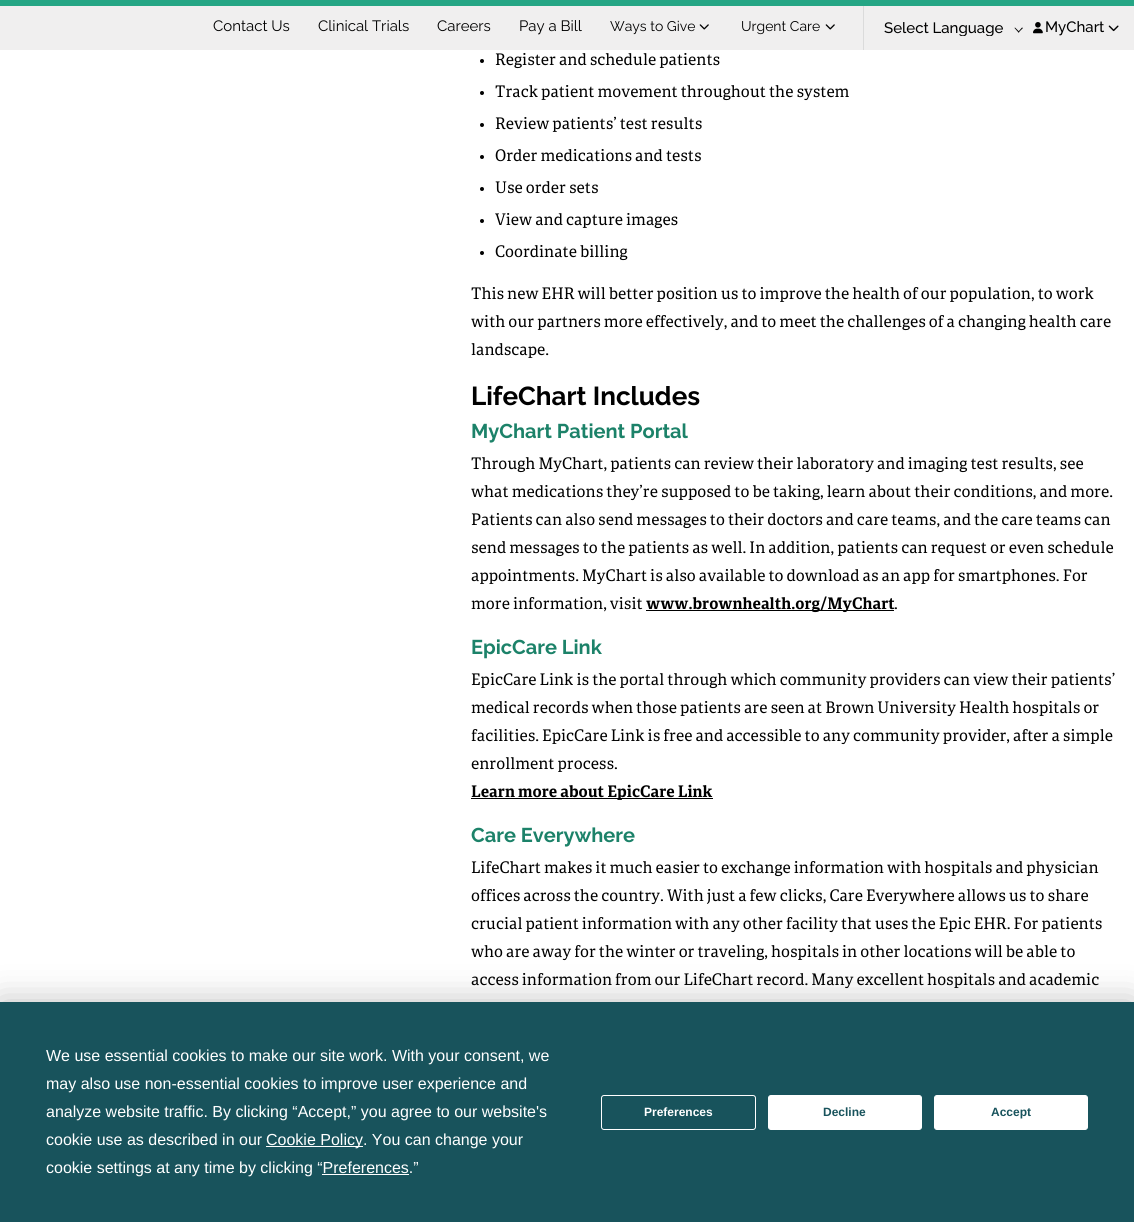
import math
import cairocffi as cairo

surface = cairo.ImageSurface(cairo.FORMAT_RGB24, 1134, 1222)
ctx = cairo.Context(surface)
options = cairo.FontOptions()
options.set_hint_metrics(cairo.HINT_METRICS_OFF)
options.set_hint_style(cairo.HINT_STYLE_NONE)
ctx.set_font_options(options)
ctx.set_miter_limit(4)


def rgb(r, g, b):
    ctx.set_source_rgb(r / 255, g / 255, b / 255)


def face(family, size, italic, bold):
    ctx.select_font_face(family, cairo.FONT_SLANT_ITALIC if italic else cairo.FONT_SLANT_NORMAL, cairo.FONT_WEIGHT_BOLD if bold else cairo.FONT_WEIGHT_NORMAL)
    ctx.set_font_size(size)


def label(x, y, s):
    ctx.move_to(x, y)
    ctx.show_text(s)


def rect(x, y, w, h):
    ctx.rectangle(x, y, w, h)
    ctx.fill()


def rrect(x, y, w, h, r):
    ctx.new_sub_path()
    for i, (u, v) in enumerate([(x + w - r, y + h - r), (x + r, y + h - r), (x + r, y + r), (x + w - r, y + r)]):
        ctx.arc(u, v, r, i * math.pi / 2, (i + 1) * math.pi / 2)
    ctx.close_path()


def soft_shadow(x, y, w, h, r, blur, alpha):
    ctx.push_group_with_content(cairo.CONTENT_ALPHA)
    ctx.set_operator(cairo.OPERATOR_SOURCE)
    for i in range(15, -16, -2):
        e = blur * i / 6
        if min(w, h) + 2 * e > 0:
            ctx.set_source_rgba(0, 0, 0, alpha * math.erfc((i - 1) / 8.5) / 2)
            rrect(x - e, y - e, w + 2 * e, h + 2 * e, max(0, min(r + e + blur * .6, min(w, h) / 2 + e)))
            ctx.fill()
    ctx.mask(ctx.pop_group())


def image(path, x, y, w, h):
    ctx.save()
    ctx.set_source_surface(cairo.ImageSurface.create_from_png(path), x, y)
    ctx.rectangle(x, y, w, h)
    ctx.fill()
    ctx.restore()


rgb(255, 255, 255)
ctx.paint()
rgb(240, 239, 239)
rect(0, 6, 1134, 44)
rgb(37, 166, 133)
rect(0, 0, 1134, 6)
rgb(219, 219, 219)
rect(863, 6, 1, 44)
face('Raleway', 15, 0, 0)
rgb(0, 0, 0)
label(213, 31, 'Contact Us')
label(318, 31, 'Clinical Trials')
label(437, 31, 'Careers')
label(519, 31, 'Pay a Bill')
face('Raleway', 14, 0, 0)
label(610, 31, 'Ways to Give')
image('image0.png', 699, 24, 10, 6)
label(741, 31, 'Urgent Care')
image('image0.png', 825, 24, 10, 6)
ctx.save()
ctx.rectangle(884, 20, 125, 16)
ctx.clip()
face('Raleway Medium', 15, 0, 0)
label(884, 33, 'Select Language')
ctx.restore()
ctx.new_path()
ctx.move_to(1022, 27.5)
ctx.line_to(1023, 28)
ctx.line_to(1018.5, 32.5)
ctx.line_to(1018, 32)
ctx.close_path()
ctx.fill()
ctx.new_path()
ctx.move_to(1015, 27.5)
ctx.line_to(1019.5, 32)
ctx.line_to(1018.5, 32.5)
ctx.line_to(1014.5, 28)
ctx.close_path()
ctx.fill()
image('image1.png', 1033, 22, 10, 12)
face('Raleway Medium', 15, 0, 0)
label(1045, 32, 'MyChart')
image('image2.png', 1108, 25, 11, 7)
ctx.arc(482, 61, 2, 0, 2 * math.pi)
ctx.fill()
face('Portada', 16, 0, 0)
label(495, 65, 'Register and schedule patients')
ctx.new_path()
ctx.arc(482, 93, 2, 0, 2 * math.pi)
ctx.fill()
label(495, 97, 'Track patient movement throughout the system')
ctx.new_path()
ctx.arc(482, 125, 2, 0, 2 * math.pi)
ctx.fill()
label(495, 129, 'Review patients’ test results')
ctx.new_path()
ctx.arc(482, 157, 2, 0, 2 * math.pi)
ctx.fill()
label(495, 161, 'Order medications and tests')
ctx.new_path()
ctx.arc(482, 189, 2, 0, 2 * math.pi)
ctx.fill()
label(495, 193, 'Use order sets')
ctx.new_path()
ctx.arc(482, 221, 2, 0, 2 * math.pi)
ctx.fill()
label(495, 225, 'View and capture images')
ctx.new_path()
ctx.arc(482, 253, 2, 0, 2 * math.pi)
ctx.fill()
label(495, 257, 'Coordinate billing')
label(471, 299, 'This new EHR will better position us to improve the health of our population, to work')
label(471, 327, 'with our partners more effectively, and to meet the challenges of a changing health care')
label(471, 355, 'landscape.')
face('Raleway', 26, 0, 1)
label(471, 405, 'LifeChart Includes')
face('Raleway', 20, 0, 1)
rgb(28, 130, 105)
label(471, 438, 'MyChart Patient Portal')
face('Portada', 16, 0, 0)
rgb(0, 0, 0)
label(471, 469, 'Through MyChart, patients can review their laboratory and imaging test results, see')
label(471, 497, 'what medications they’re supposed to be taking, learn about their conditions, and more.')
label(471, 525, 'Patients can also send messages to their doctors and care teams, and the care teams can')
label(471, 553, 'send messages to the patients as well. In addition, patients can request or even schedule')
label(471, 581, 'appointments. MyChart is also available to download as an app for smartphones. For')
label(471, 609, 'more information, visit')
rect(646, 610, 248, 1)
face('Portada', 16, 0, 1)
label(646, 609, 'www.brownhealth.org/MyChart')
face('Portada', 16, 0, 0)
label(894, 609, '.')
face('Raleway', 20, 0, 1)
rgb(28, 130, 105)
label(471, 654, 'EpicCare Link')
face('Portada', 16, 0, 0)
rgb(0, 0, 0)
label(471, 685, 'EpicCare Link is the portal through which community providers can view their patients’')
label(471, 713, 'medical records when those patients are seen at Brown University Health hospitals or')
label(471, 741, 'facilities. EpicCare Link is free and accessible to any community provider, after a simple')
label(471, 769, 'enrollment process.')
rect(471, 798, 242, 1)
face('Portada', 16, 0, 1)
label(471, 797, 'Learn more about EpicCare Link')
face('Raleway', 20, 0, 1)
rgb(28, 130, 105)
label(471, 842, 'Care Everywhere')
face('Portada', 16, 0, 0)
rgb(0, 0, 0)
label(471, 873, 'LifeChart makes it much easier to exchange information with hospitals and physician')
label(471, 901, 'offices across the country. With just a few clicks, Care Everywhere allows us to share')
label(471, 929, 'crucial patient information with any other facility that uses the Epic EHR. For patients')
label(471, 957, 'who are away for the winter or traveling, hospitals in other locations will be able to')
label(471, 985, 'access information from our LifeChart record. Many excellent hospitals and academic')
rgb(0, 0, 0)
soft_shadow(0, 1002, 1134, 220, 0, 17.5, 0.25)
rgb(24, 83, 92)
rect(0, 1002, 1134, 220)
face('Liberation Sans', 16, 0, 0)
rgb(255, 255, 255)
label(46, 1061, 'We use essential cookies to make our site work. With your consent, we')
label(46, 1089, 'may also use non-essential cookies to improve user experience and')
label(46, 1117, 'analyze website traffic. By clicking “Accept,” you agree to our website\'s')
label(46, 1145, 'cookie use as described in our')
rect(266, 1146, 97, 1)
label(266, 1145, 'Cookie Policy. You can change your')
label(46, 1173, 'cookie settings at any time by clicking “Preferences.”')
rect(322, 1174, 87, 1)
rrect(601.5, 1095.5, 154, 34, 2.5)
ctx.set_line_width(1)
ctx.stroke()
face('Liberation Sans', 12, 0, 1)
label(644, 1116, 'Preferences')
rrect(768.5, 1095.5, 153, 34, 2.5)
ctx.fill_preserve()
ctx.stroke()
rgb(24, 83, 92)
label(823, 1116, 'Decline')
rgb(255, 255, 255)
rrect(934.5, 1095.5, 153, 34, 2.5)
ctx.fill_preserve()
ctx.stroke()
rgb(24, 83, 92)
label(991, 1116, 'Accept')
surface.write_to_png('render.png')
